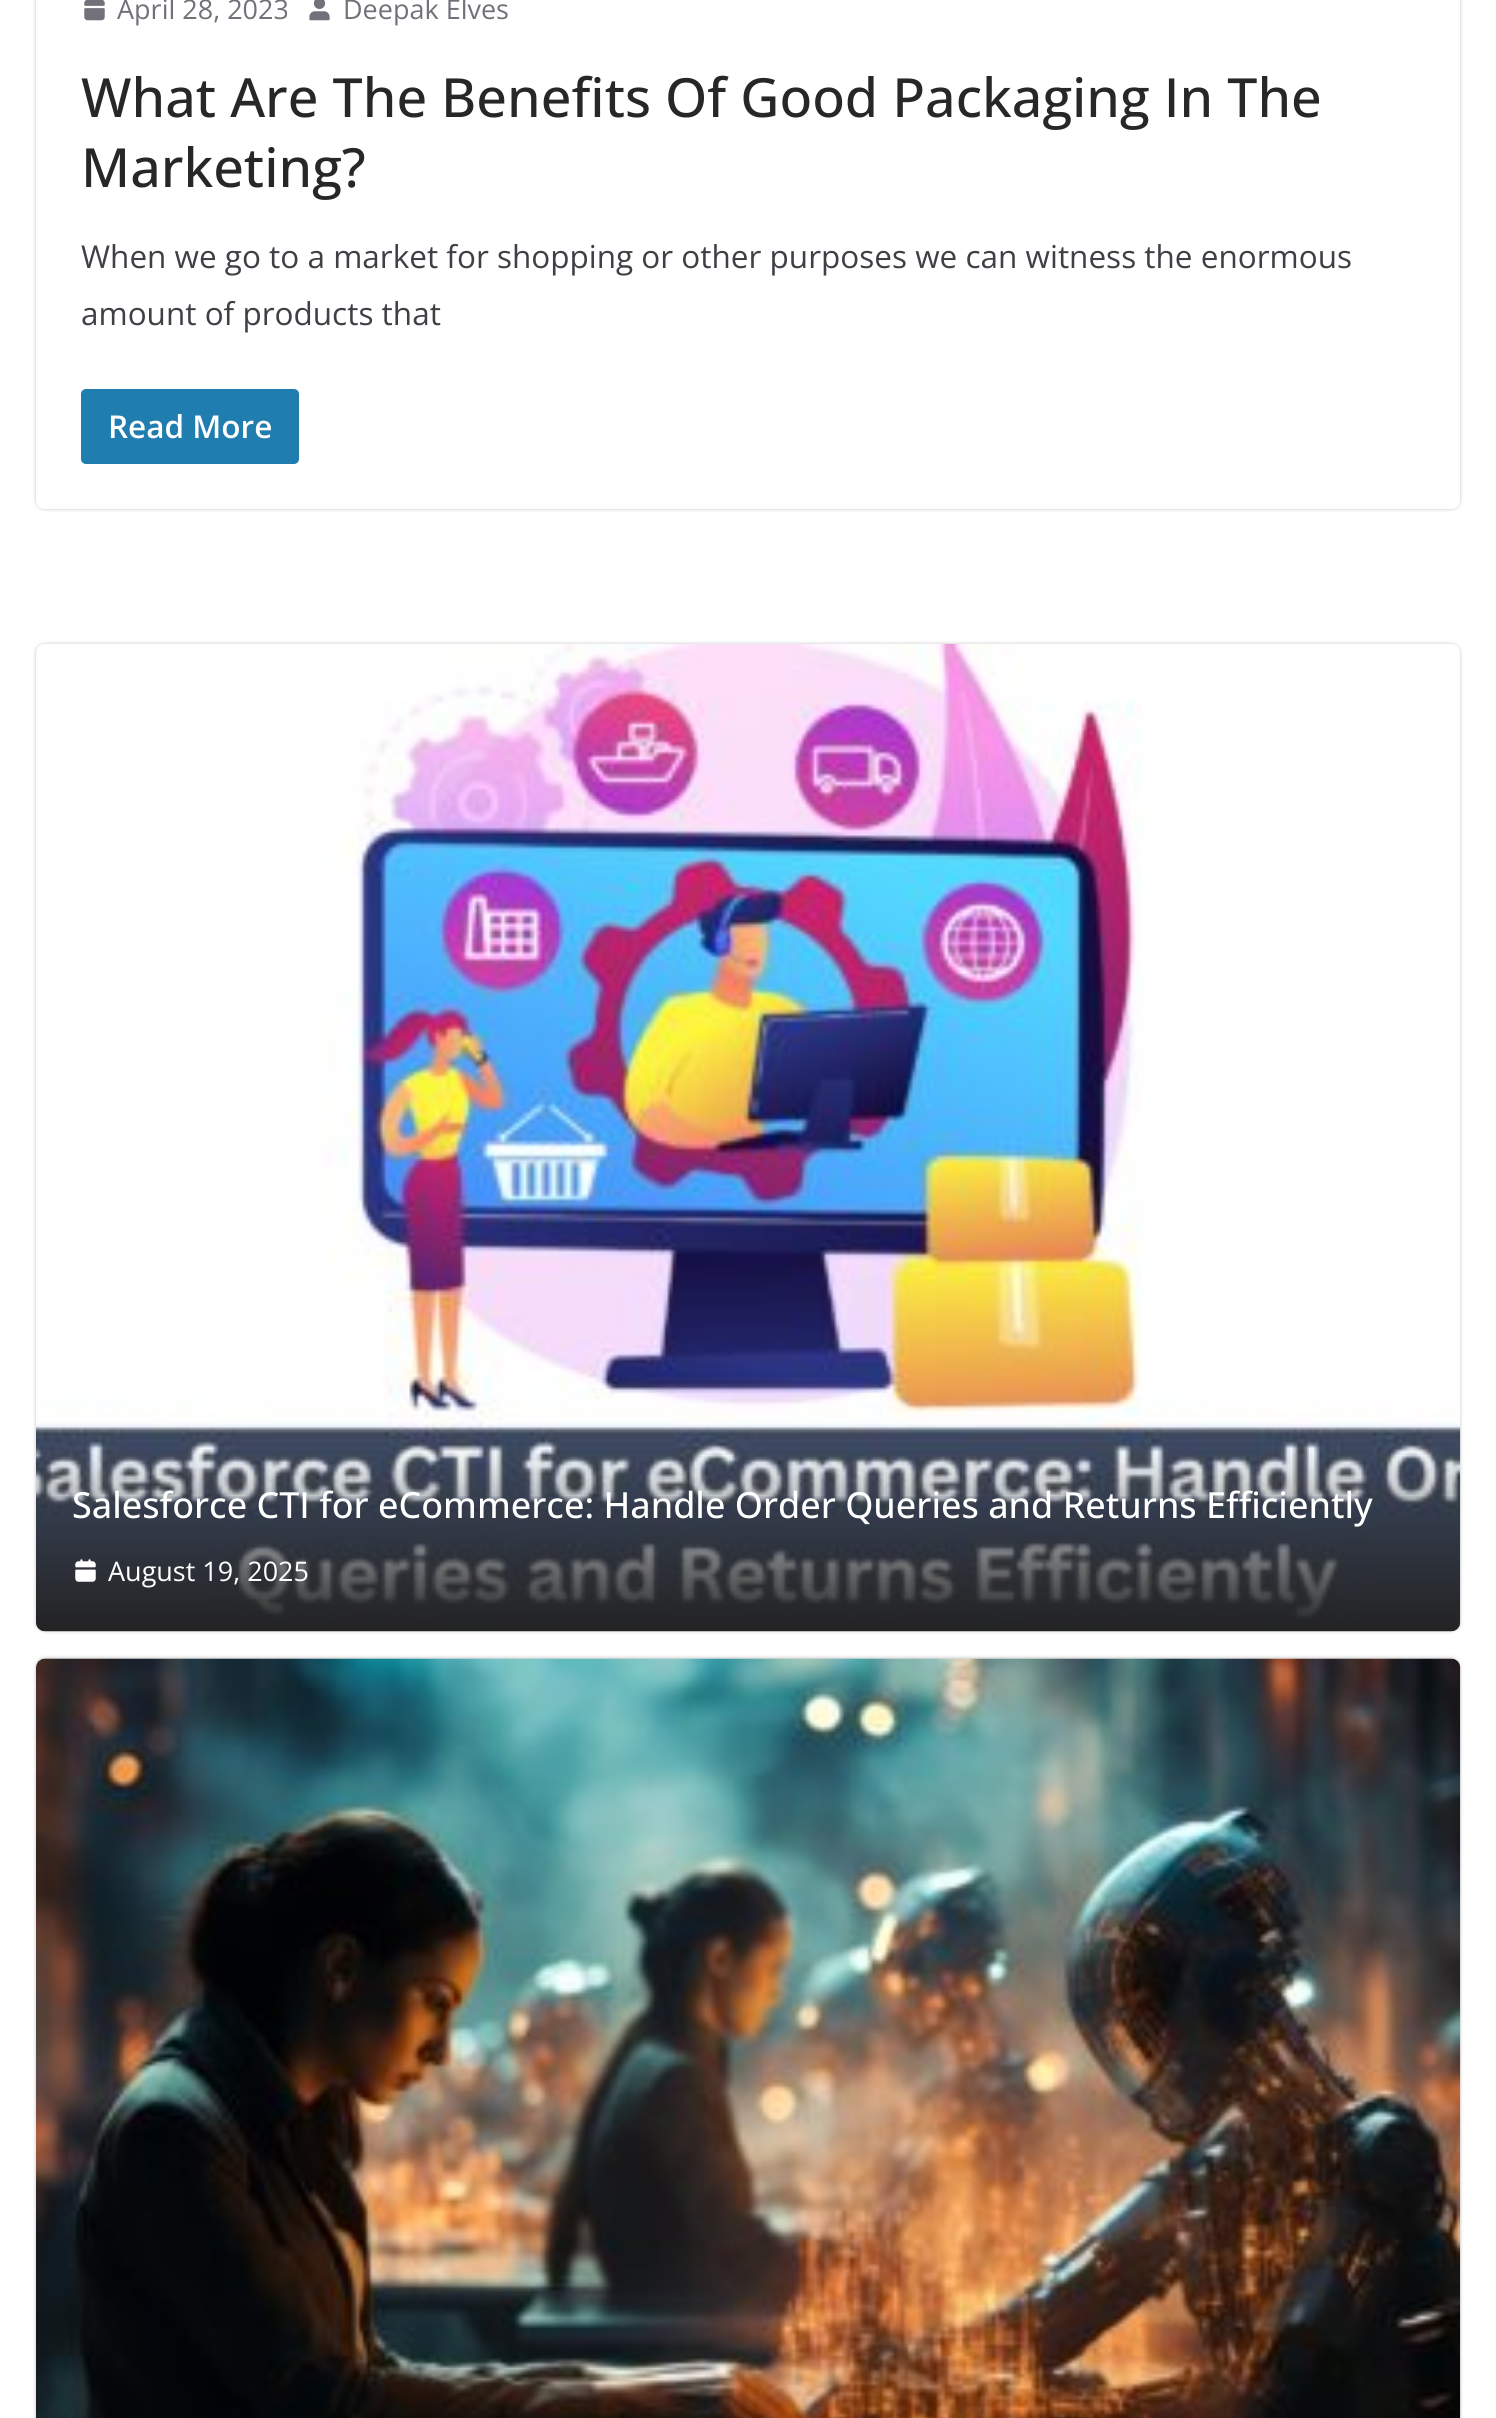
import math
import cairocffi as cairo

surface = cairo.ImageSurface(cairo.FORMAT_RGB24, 1496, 2418)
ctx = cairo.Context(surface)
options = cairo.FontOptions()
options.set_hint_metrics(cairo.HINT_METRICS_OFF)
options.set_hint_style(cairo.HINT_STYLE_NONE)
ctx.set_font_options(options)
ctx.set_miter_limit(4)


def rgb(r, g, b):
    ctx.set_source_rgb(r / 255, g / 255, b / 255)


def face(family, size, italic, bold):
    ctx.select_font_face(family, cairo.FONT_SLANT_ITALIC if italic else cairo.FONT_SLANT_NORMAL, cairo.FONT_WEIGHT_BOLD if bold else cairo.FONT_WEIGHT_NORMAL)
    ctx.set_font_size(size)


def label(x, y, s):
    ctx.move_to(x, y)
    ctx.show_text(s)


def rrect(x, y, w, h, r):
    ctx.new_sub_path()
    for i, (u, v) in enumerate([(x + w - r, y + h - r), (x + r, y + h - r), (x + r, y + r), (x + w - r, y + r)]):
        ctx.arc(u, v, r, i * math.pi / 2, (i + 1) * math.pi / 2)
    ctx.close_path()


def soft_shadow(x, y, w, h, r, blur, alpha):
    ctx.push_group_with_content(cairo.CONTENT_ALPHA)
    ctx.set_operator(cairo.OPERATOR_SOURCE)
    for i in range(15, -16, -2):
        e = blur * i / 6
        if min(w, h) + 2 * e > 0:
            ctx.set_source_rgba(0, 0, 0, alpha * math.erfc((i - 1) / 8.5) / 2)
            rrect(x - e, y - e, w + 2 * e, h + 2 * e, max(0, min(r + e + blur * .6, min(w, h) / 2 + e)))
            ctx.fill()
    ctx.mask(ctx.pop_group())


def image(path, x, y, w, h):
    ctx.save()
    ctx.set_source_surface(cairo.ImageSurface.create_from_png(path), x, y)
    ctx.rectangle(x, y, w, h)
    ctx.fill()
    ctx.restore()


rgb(255, 255, 255)
ctx.paint()
ctx.save()
ctx.set_fill_rule(cairo.FILL_RULE_EVEN_ODD)
ctx.new_path()
ctx.move_to(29, 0)
ctx.line_to(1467, 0)
ctx.line_to(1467, 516)
ctx.line_to(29, 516)
ctx.close_path()
ctx.move_to(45, -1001)
ctx.line_to(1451, -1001)
ctx.curve_to(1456, -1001, 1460, -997, 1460, -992)
ctx.line_to(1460, 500)
ctx.curve_to(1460, 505, 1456, 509, 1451, 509)
ctx.line_to(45, 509)
ctx.curve_to(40, 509, 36, 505, 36, 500)
ctx.line_to(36, -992)
ctx.curve_to(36, -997, 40, -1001, 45, -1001)
ctx.close_path()
ctx.clip()
rgb(0, 0, 0)
soft_shadow(36, -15, 1424, 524, 9, 2, 0.24)
ctx.restore()
image('image0.png', 84, 0, 21, 21)
face('Open Sans', 27, 0, 0)
rgb(113, 113, 122)
label(117, 19, 'April 28, 2023')
image('image1.png', 309, 0, 21, 21)
label(343, 19, 'Deepak Elves')
face('Open Sans Medium', 54, 0, 0)
rgb(39, 39, 42)
label(81, 117, 'What Are The Benefits Of Good Packaging In The')
label(81, 187, 'Marketing?')
face('Open Sans', 31.5, 0, 0)
rgb(63, 63, 70)
label(81, 268, 'When we go to a market for shopping or other purposes we can witness the enormous')
label(81, 325, 'amount of products that')
rgb(32, 125, 175)
rrect(81, 389, 218, 75, 5)
ctx.fill()
face('Open Sans SemiBold', 31.5, 0, 0)
rgb(255, 255, 255)
label(108, 438, 'Read More')
rgb(0, 0, 0)
soft_shadow(36, 644, 1424, 987, 9, 2, 0.24)
image('image2.png', 36, 643, 1425, 989)
gradient = cairo.LinearGradient(748, 1447, 748, 1631)
gradient.add_color_stop_rgba(0, 0.137, 0.137, 0.137, 0)
gradient.add_color_stop_rgba(1, 0.137, 0.137, 0.137, 1)
ctx.set_source(gradient)
ctx.new_path()
ctx.move_to(36, 1447)
ctx.line_to(1460, 1447)
ctx.line_to(1460, 1622)
ctx.curve_to(1460, 1627, 1456, 1631, 1451, 1631)
ctx.line_to(45, 1631)
ctx.curve_to(40, 1631, 36, 1627, 36, 1622)
ctx.close_path()
ctx.fill()
face('Open Sans Medium', 36, 0, 0)
rgb(255, 255, 255)
label(72, 1518, 'Salesforce CTI for eCommerce: Handle Order Queries and Returns Efficiently')
image('image3.png', 75, 1559, 21, 23)
face('Open Sans', 27, 0, 0)
label(108, 1581, 'August 19, 2025')
rgb(0, 0, 0)
soft_shadow(36, 1658, 1424, 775, 9, 2, 0.24)
image('image4.png', 36, 1658, 1425, 760)
surface.write_to_png('render.png')
